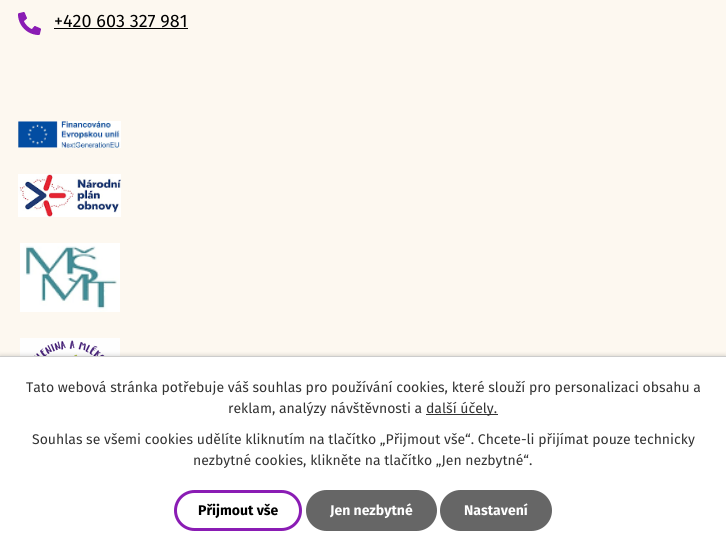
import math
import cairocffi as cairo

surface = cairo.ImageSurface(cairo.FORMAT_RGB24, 726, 550)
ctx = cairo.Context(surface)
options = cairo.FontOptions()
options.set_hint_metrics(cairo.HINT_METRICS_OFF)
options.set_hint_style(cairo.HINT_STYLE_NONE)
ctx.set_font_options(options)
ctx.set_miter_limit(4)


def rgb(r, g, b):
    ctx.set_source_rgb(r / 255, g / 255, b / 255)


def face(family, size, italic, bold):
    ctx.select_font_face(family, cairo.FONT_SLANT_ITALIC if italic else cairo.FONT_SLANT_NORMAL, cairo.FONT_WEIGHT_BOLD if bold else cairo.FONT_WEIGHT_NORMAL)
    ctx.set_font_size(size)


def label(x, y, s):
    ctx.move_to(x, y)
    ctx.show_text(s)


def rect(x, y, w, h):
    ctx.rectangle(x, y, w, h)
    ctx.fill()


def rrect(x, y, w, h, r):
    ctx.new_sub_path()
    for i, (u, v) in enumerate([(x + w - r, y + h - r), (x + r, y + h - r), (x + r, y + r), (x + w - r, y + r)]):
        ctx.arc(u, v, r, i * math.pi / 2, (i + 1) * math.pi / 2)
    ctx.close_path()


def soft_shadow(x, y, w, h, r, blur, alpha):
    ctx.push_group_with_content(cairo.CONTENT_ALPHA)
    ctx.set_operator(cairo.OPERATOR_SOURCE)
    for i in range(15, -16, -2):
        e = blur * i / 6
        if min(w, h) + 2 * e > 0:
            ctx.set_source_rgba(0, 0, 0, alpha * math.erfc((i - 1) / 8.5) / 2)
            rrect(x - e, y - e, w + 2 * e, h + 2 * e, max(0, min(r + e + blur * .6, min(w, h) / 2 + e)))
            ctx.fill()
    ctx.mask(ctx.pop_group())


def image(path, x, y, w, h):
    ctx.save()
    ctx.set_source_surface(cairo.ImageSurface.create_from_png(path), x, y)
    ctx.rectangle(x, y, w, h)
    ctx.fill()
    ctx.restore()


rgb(253, 248, 240)
ctx.paint()
image('image0.png', 18, 12, 23, 23)
face('Fira Sans', 18, 0, 0)
rgb(0, 0, 0)
label(54, 27, '+420 603 327 981')
rect(54, 28, 134, 1)
image('image1.png', 18, 121, 103, 27)
image('image2.png', 18, 174, 103, 43)
image('image3.png', 20, 243, 100, 69)
image('image4.png', 20, 338, 100, 18)
rgb(0, 0, 0)
soft_shadow(0, 356, 726, 194, 0, 2.5, 0.2)
rgb(255, 255, 255)
rect(0, 357, 726, 193)
rgb(204, 204, 204)
rect(0, 356, 726, 1)
face('Fira Sans', 14, 0, 0)
rgb(51, 51, 51)
label(26, 392, 'Tato webová stránka potřebuje váš souhlas pro používání cookies, které slouží pro personalizaci obsahu a')
label(228, 413, 'reklam, analýzy návštěvnosti a')
rect(426, 414, 72, 1)
label(426, 413, 'další účely.')
label(32, 444, 'Souhlas se všemi cookies udělíte kliknutím na tlačítko „Přijmout vše“. Chcete-li přijímat pouze technicky')
label(193, 465, 'nezbytné cookies, klikněte na tlačítko „Jen nezbytné“.')
rrect(175.5, 491.5, 125, 38, 19)
rgb(138, 28, 180)
ctx.set_line_width(3)
ctx.stroke()
face('Fira Sans', 14, 0, 1)
rgb(0, 0, 0)
label(198, 515, 'Přijmout vše')
rgb(102, 102, 102)
rrect(307.5, 491.5, 128, 38, 19)
ctx.fill_preserve()
ctx.stroke()
rgb(255, 255, 255)
label(330, 515, 'Jen nezbytné')
rgb(102, 102, 102)
rrect(441.5, 491.5, 109, 38, 19)
ctx.fill_preserve()
ctx.stroke()
rgb(255, 255, 255)
label(464, 515, 'Nastavení')
surface.write_to_png('render.png')
